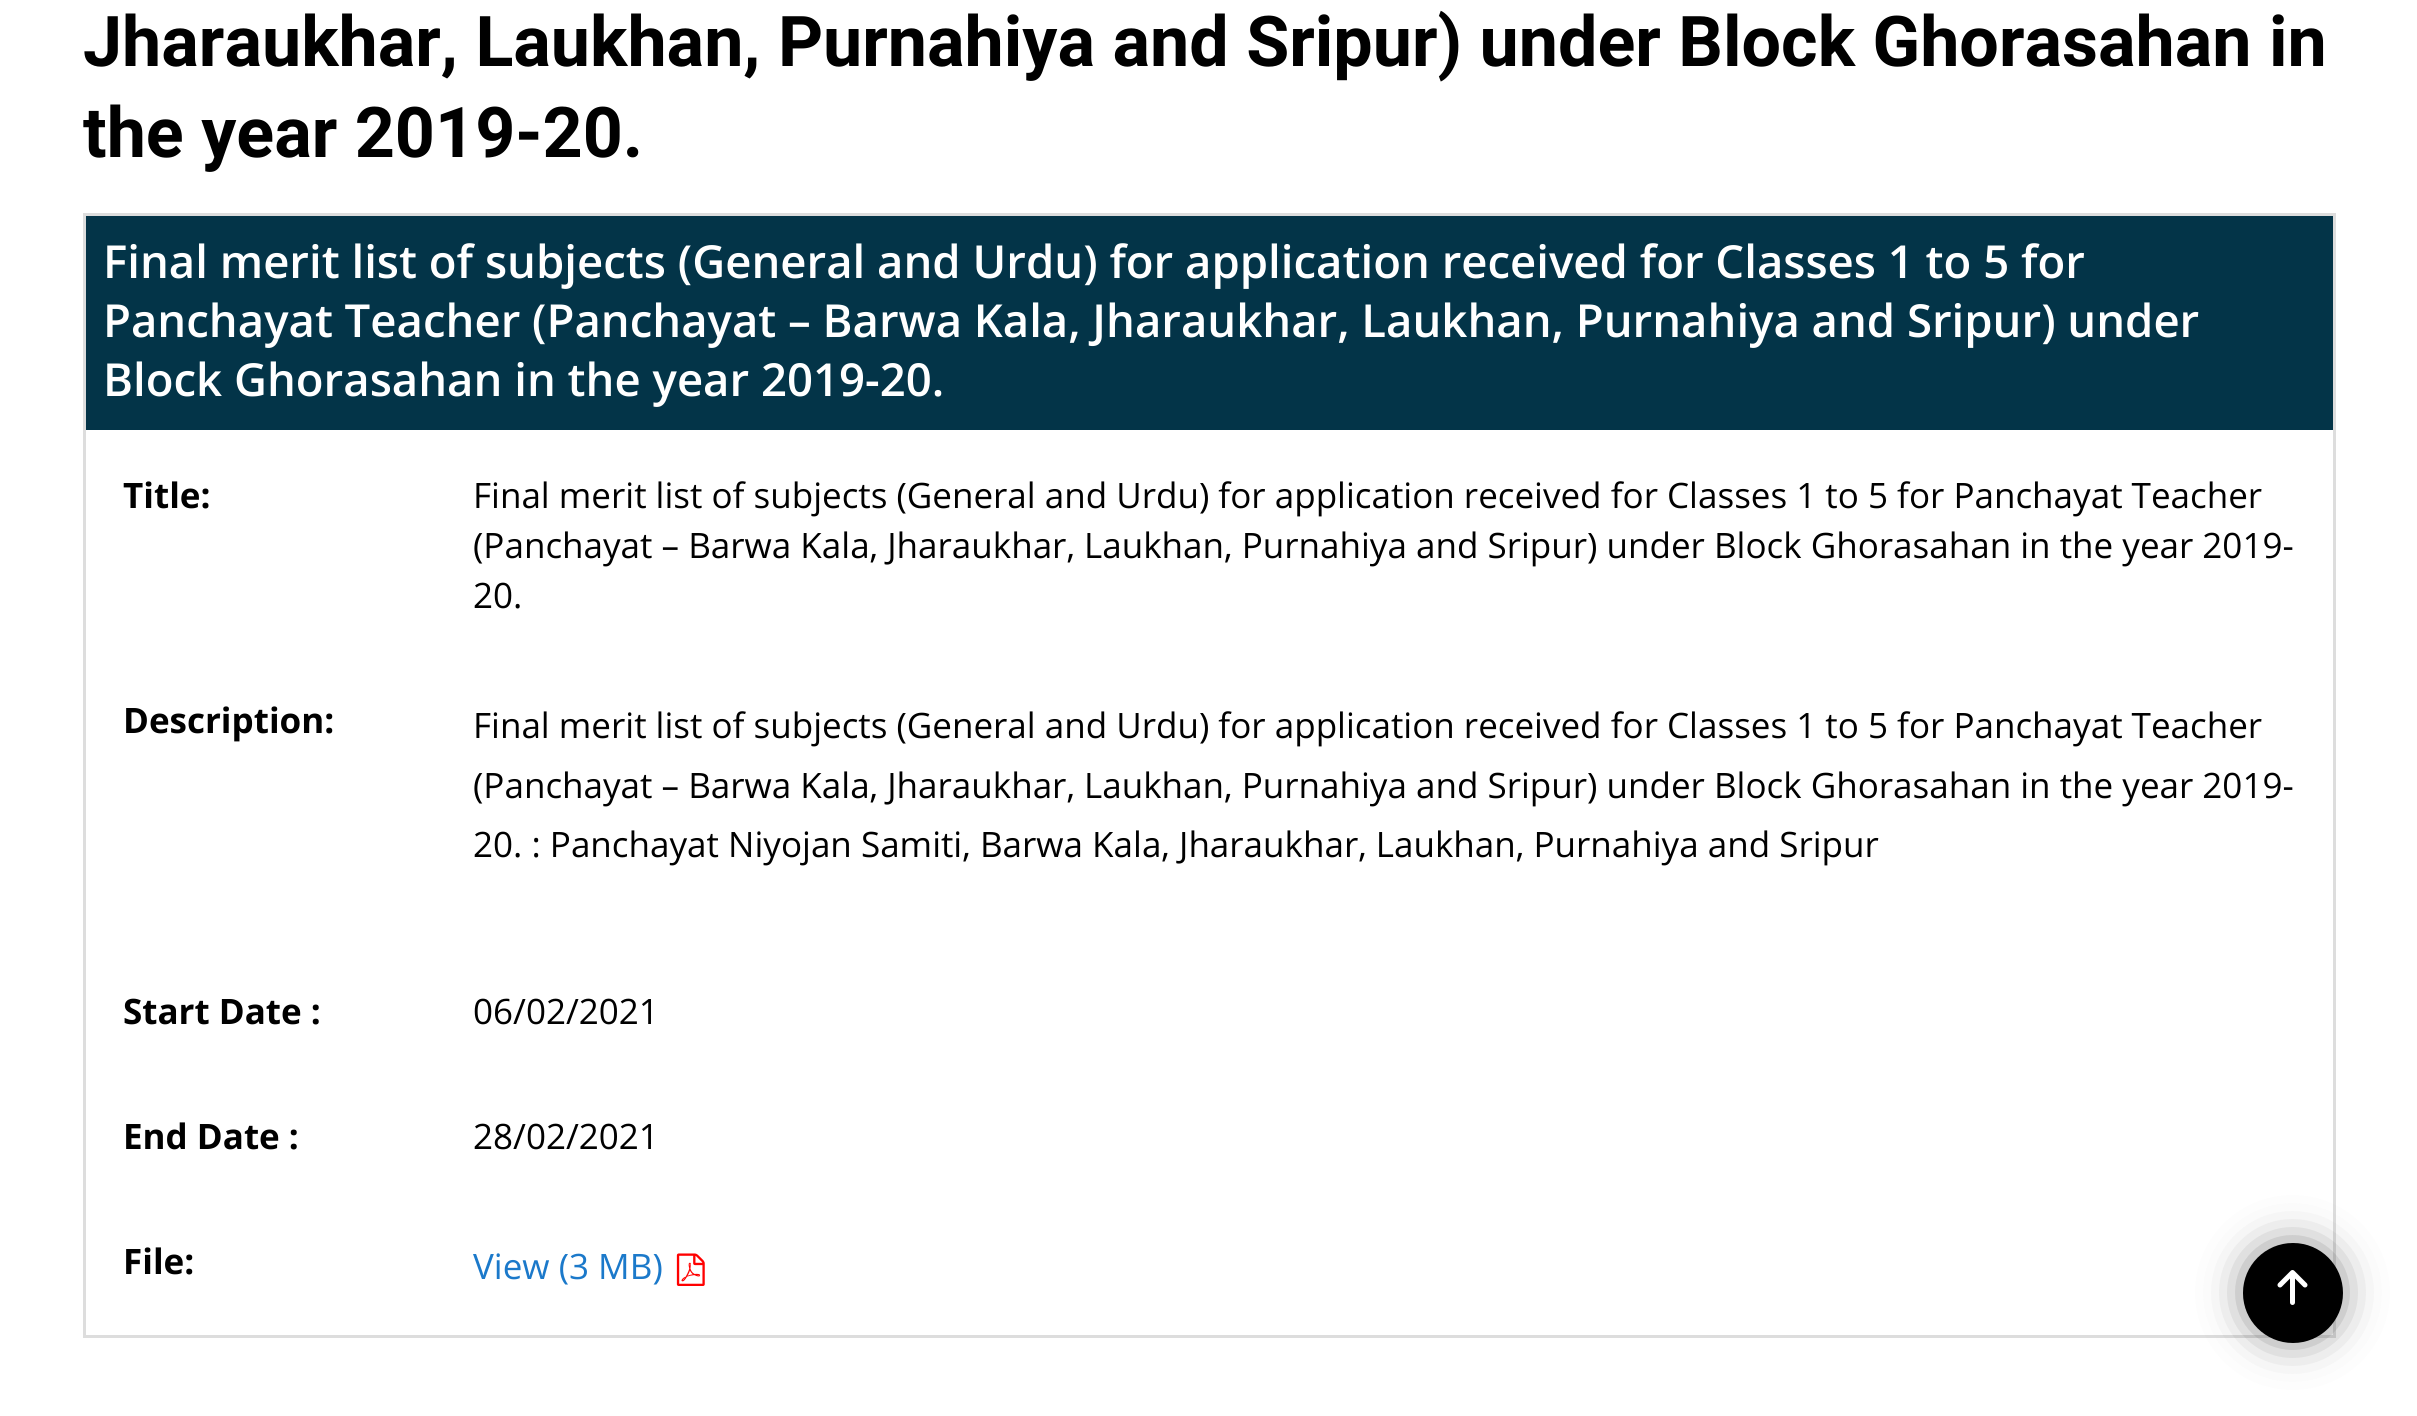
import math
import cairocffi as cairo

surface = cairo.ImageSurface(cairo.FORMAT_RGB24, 2417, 1416)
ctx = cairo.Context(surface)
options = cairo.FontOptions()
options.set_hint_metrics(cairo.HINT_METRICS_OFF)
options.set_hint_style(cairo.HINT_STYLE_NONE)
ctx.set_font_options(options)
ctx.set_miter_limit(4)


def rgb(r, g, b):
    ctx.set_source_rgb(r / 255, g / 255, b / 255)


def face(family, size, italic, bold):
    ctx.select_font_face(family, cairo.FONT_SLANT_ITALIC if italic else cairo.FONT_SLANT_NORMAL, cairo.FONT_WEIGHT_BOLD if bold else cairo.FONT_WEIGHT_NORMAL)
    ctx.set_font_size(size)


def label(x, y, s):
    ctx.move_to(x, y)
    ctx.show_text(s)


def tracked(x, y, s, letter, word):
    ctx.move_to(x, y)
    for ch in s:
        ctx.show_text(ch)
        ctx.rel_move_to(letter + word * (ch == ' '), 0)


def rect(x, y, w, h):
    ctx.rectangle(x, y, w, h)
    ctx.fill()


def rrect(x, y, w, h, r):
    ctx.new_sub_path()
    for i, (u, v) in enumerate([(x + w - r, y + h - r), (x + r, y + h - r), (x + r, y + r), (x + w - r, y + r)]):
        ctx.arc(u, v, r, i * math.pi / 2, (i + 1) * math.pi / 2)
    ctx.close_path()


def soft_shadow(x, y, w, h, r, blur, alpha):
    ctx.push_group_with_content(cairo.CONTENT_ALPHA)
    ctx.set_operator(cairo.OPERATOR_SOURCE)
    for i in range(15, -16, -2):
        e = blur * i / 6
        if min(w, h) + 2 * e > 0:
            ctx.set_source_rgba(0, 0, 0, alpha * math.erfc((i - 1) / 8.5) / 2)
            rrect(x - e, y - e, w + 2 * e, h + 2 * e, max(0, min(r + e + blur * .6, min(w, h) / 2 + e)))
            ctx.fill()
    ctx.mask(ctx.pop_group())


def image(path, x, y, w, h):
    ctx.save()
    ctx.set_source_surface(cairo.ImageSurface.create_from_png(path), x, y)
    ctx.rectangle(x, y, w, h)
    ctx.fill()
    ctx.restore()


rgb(255, 255, 255)
ctx.paint()
face('Roboto', 70, 0, 1)
rgb(0, 0, 0)
label(83, 66, 'Jharaukhar, Laukhan, Purnahiya and Sripur) under Block Ghorasahan in')
label(83, 157, 'the year 2019-20.')
rgb(221, 221, 221)
rect(83, 213, 2252, 3)
rect(2333, 213, 3, 1125)
rect(83, 1335, 2252, 3)
rect(83, 213, 3, 1125)
rgb(3, 52, 72)
rect(86, 216, 2247, 214)
face('Open Sans SemiBold', 45.5, 0, 0)
rgb(255, 255, 255)
label(103, 278, 'Final merit list of subjects (General and Urdu) for application received for Classes 1 to 5 for')
tracked(103, 337, 'Panchayat Teacher (Panchayat – Barwa Kala, Jharaukhar, Laukhan, Purnahiya and Sripur) under', 0, -0.1)
label(103, 396, 'Block Ghorasahan in the year 2019-20.')
face('Open Sans', 35, 0, 1)
rgb(0, 0, 0)
label(123, 508, 'Title:')
face('Open Sans', 35, 0, 0)
label(473, 508, 'Final merit list of subjects (General and Urdu) for application received for Classes 1 to 5 for Panchayat Teacher')
label(473, 558, '(Panchayat – Barwa Kala, Jharaukhar, Laukhan, Purnahiya and Sripur) under Block Ghorasahan in the year 2019-')
label(473, 608, '20.')
face('Open Sans', 35, 0, 1)
label(123, 733, 'Description:')
face('Open Sans', 35, 0, 0)
label(473, 738, 'Final merit list of subjects (General and Urdu) for application received for Classes 1 to 5 for Panchayat Teacher')
label(473, 798, '(Panchayat – Barwa Kala, Jharaukhar, Laukhan, Purnahiya and Sripur) under Block Ghorasahan in the year 2019-')
label(473, 857, '20. : Panchayat Niyojan Samiti, Barwa Kala, Jharaukhar, Laukhan, Purnahiya and Sripur')
face('Open Sans', 35, 0, 1)
label(123, 1024, 'Start Date :')
face('Open Sans', 35, 0, 0)
label(473, 1024, '06/02/2021')
face('Open Sans', 35, 0, 1)
label(123, 1149, 'End Date :')
face('Open Sans', 35, 0, 0)
label(473, 1149, '28/02/2021')
face('Open Sans', 35, 0, 1)
label(123, 1274, 'File:')
face('Open Sans', 35, 0, 0)
rgb(27, 121, 202)
label(473, 1279, 'View (3 MB)')
image('image0.png', 676, 1253, 29, 33)
rgb(60, 60, 60)
soft_shadow(2255, 1255, 75, 75, 37.5, 24, 1)
rgb(0, 0, 0)
ctx.arc(2293, 1293, 50, 0, 2 * math.pi)
ctx.fill()
image('image1.png', 2277, 1270, 31, 35)
surface.write_to_png('render.png')
